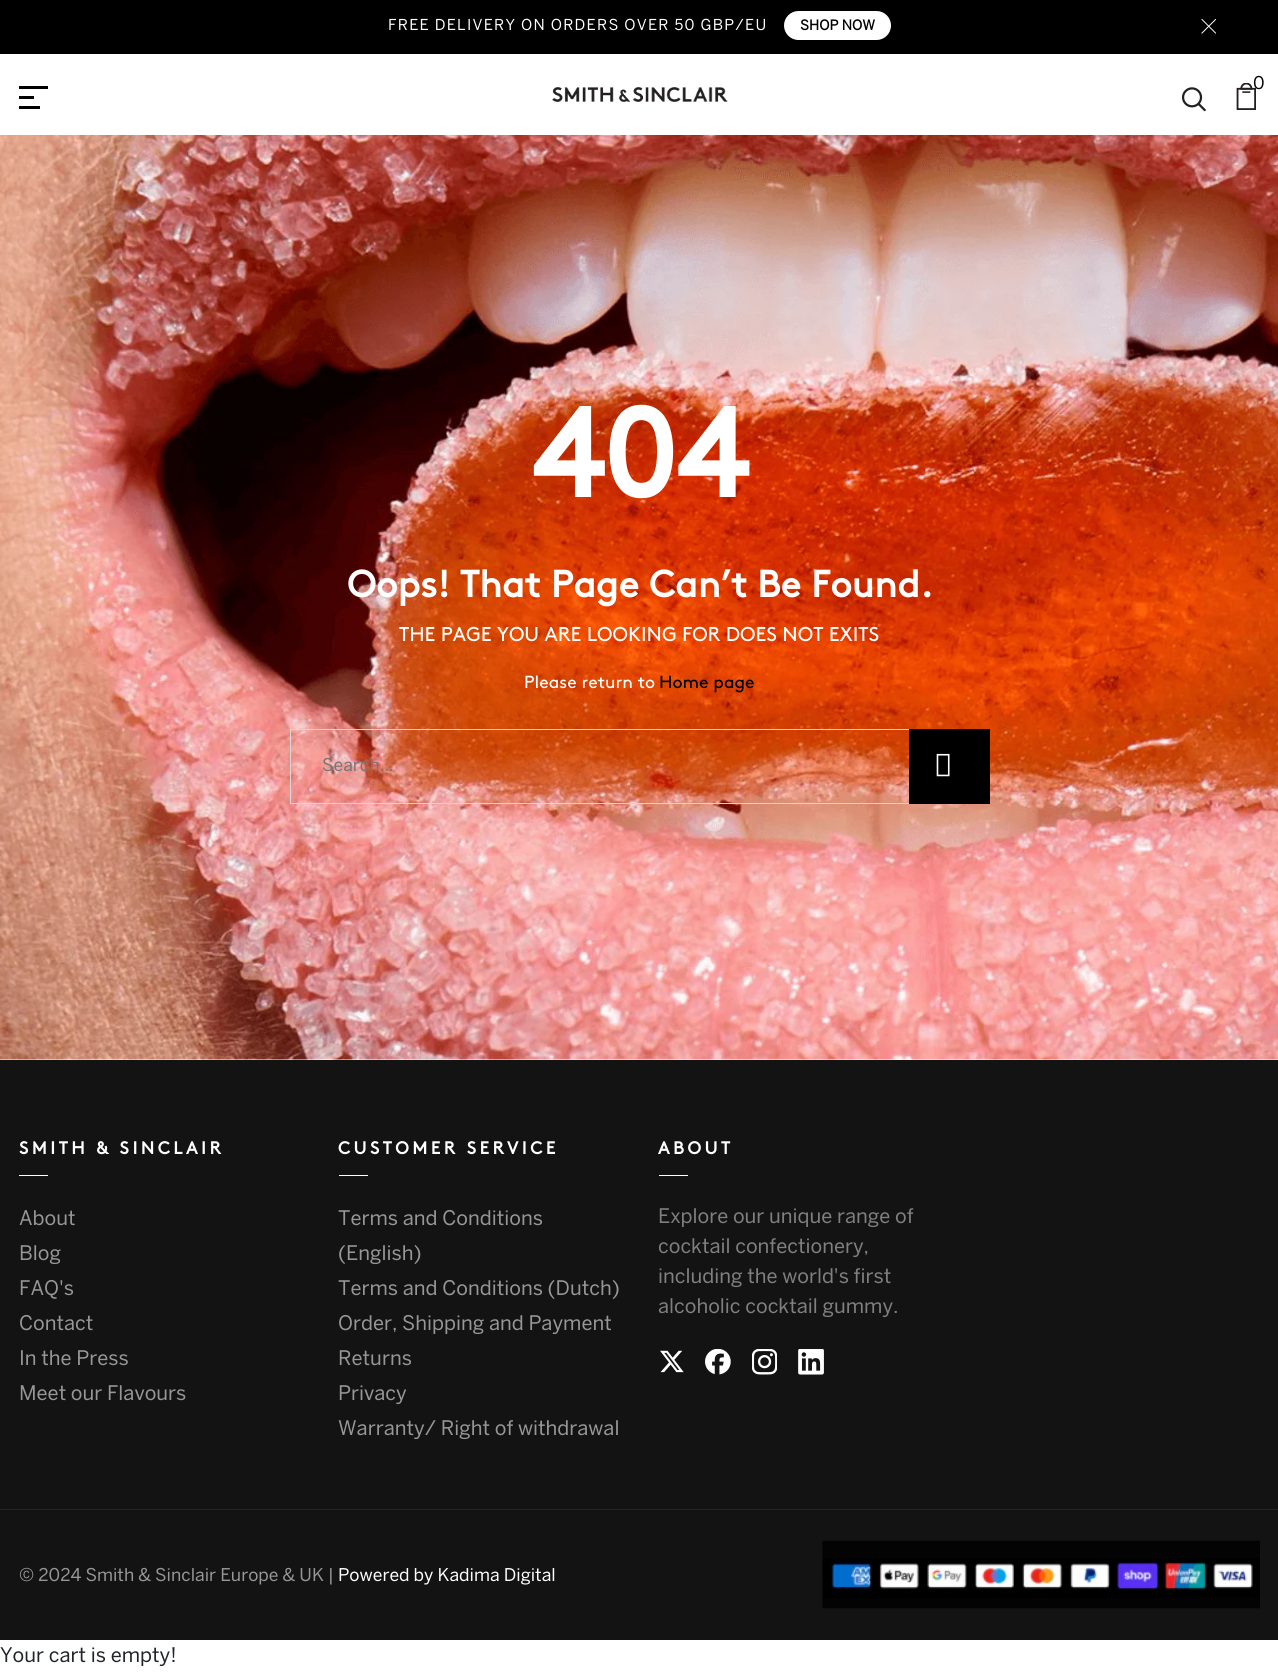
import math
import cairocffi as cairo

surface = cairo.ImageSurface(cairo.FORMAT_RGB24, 1278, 1678)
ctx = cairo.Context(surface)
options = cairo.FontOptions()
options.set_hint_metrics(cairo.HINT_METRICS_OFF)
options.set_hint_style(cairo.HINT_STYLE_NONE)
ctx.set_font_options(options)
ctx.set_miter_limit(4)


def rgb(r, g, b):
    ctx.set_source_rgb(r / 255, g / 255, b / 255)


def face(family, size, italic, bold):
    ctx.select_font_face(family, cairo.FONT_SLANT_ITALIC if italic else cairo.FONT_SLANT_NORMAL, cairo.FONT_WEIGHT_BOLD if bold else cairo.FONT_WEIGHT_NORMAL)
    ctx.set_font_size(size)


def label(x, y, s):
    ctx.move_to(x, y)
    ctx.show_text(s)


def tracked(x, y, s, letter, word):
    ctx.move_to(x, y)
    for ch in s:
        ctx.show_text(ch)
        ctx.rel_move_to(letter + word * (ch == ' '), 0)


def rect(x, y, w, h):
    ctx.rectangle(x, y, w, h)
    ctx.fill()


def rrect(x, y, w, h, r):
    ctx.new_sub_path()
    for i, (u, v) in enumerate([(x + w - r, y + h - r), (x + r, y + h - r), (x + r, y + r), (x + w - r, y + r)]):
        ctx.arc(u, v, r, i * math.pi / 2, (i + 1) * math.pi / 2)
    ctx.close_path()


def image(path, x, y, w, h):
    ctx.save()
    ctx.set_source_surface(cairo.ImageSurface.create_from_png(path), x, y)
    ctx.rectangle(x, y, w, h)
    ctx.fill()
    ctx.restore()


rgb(255, 255, 255)
ctx.paint()
rgb(0, 0, 0)
rect(0, 0, 1278, 54)
face('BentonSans', 15, 0, 0)
rgb(255, 255, 255)
tracked(388, 30, 'FREE DELIVERY ON ORDERS OVER 50 GBP/EU', 1.25, 0)
rrect(784, 11, 107, 29, 14.5)
ctx.fill()
face('BentonSans', 13.75, 0, 1)
rgb(0, 0, 0)
label(800, 30, 'SHOP NOW')
image('image0.png', 1201, 19, 15, 15)
image('image1.png', 1236, 83, 20, 27)
face('BentonSans', 17.5, 0, 0)
label(1253, 89, '0')
image('image2.png', 1181, 87, 25, 25)
rect(19, 86, 29, 3)
rect(19, 96, 15, 3)
rect(19, 106, 21, 3)
image('image3.png', 552, 87, 176, 15)
image('image4.png', 0, 135, 1278, 925)
face('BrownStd', 125, 0, 1)
rgb(255, 255, 255)
label(532, 497, '404')
face('BrownStd', 37.5, 0, 1)
label(347, 597, 'Oops! That Page Can’t Be Found.')
face('BrownStd', 20, 0, 0)
label(399, 641, 'THE PAGE YOU ARE LOOKING FOR DOES NOT EXITS')
face('BrownStd', 17.5, 0, 0)
label(524, 688, 'Please return to')
rgb(0, 0, 0)
label(659, 688, 'Home page')
ctx.rectangle(290.5, 729.5, 699, 74)
rgb(214, 214, 214)
ctx.set_line_width(1)
ctx.stroke()
face('BentonSans', 17.5, 0, 0)
rgb(117, 117, 117)
label(322, 771, 'Search...')
rgb(0, 0, 0)
rect(909, 729, 81, 75)
image('image5.png', 936, 753, 14, 24)
rgb(19, 19, 19)
rect(0, 1060, 1278, 580)
face('BrownStd', 17.5, 0, 1)
rgb(255, 255, 255)
tracked(19, 1154, 'SMITH & SINCLAIR', 3.5, 0)
rect(19, 1175, 29, 1)
face('BentonSans', 20, 0, 0)
rgb(151, 151, 151)
label(19, 1225, 'About')
label(19, 1260, 'Blog')
label(19, 1295, 'FAQ\'s')
label(19, 1330, 'Contact')
label(19, 1365, 'In the Press')
label(19, 1400, 'Meet our Flavours')
face('BrownStd', 17.5, 0, 1)
rgb(255, 255, 255)
tracked(338, 1154, 'CUSTOMER SERVICE', 3.5, 0)
rect(339, 1175, 29, 1)
face('BentonSans', 20, 0, 0)
rgb(151, 151, 151)
label(338, 1225, 'Terms and Conditions')
label(338, 1260, '(English)')
label(338, 1295, 'Terms and Conditions (Dutch)')
label(338, 1330, 'Order, Shipping and Payment')
label(338, 1365, 'Returns')
label(338, 1400, 'Privacy')
label(338, 1435, 'Warranty/ Right of withdrawal')
face('BrownStd', 17.5, 0, 1)
rgb(255, 255, 255)
tracked(658, 1154, 'ABOUT', 3.5, 0)
rect(659, 1175, 29, 1)
face('BentonSans', 20, 0, 0)
rgb(128, 128, 128)
label(658, 1223, 'Explore our unique range of')
label(658, 1253, 'cocktail confectionery,')
label(658, 1283, 'including the world\'s first')
label(658, 1313, 'alcoholic cocktail gummy.')
image('image6.png', 660, 1350, 24, 23)
image('image7.png', 705, 1349, 26, 26)
image('image8.png', 752, 1349, 25, 26)
image('image9.png', 798, 1349, 26, 26)
rgb(36, 36, 36)
rect(0, 1509, 1278, 1)
face('BentonSans', 17.5, 0, 0)
rgb(151, 151, 151)
label(19, 1581, '© 2024 Smith & Sinclair Europe & UK |')
rgb(255, 255, 255)
label(338, 1581, 'Powered by Kadima Digital')
image('image10.png', 822, 1540, 438, 69)
face('BentonSans', 20, 0, 0)
rgb(33, 37, 41)
label(0, 1662, 'Your cart is empty!')
surface.write_to_png('render.png')
